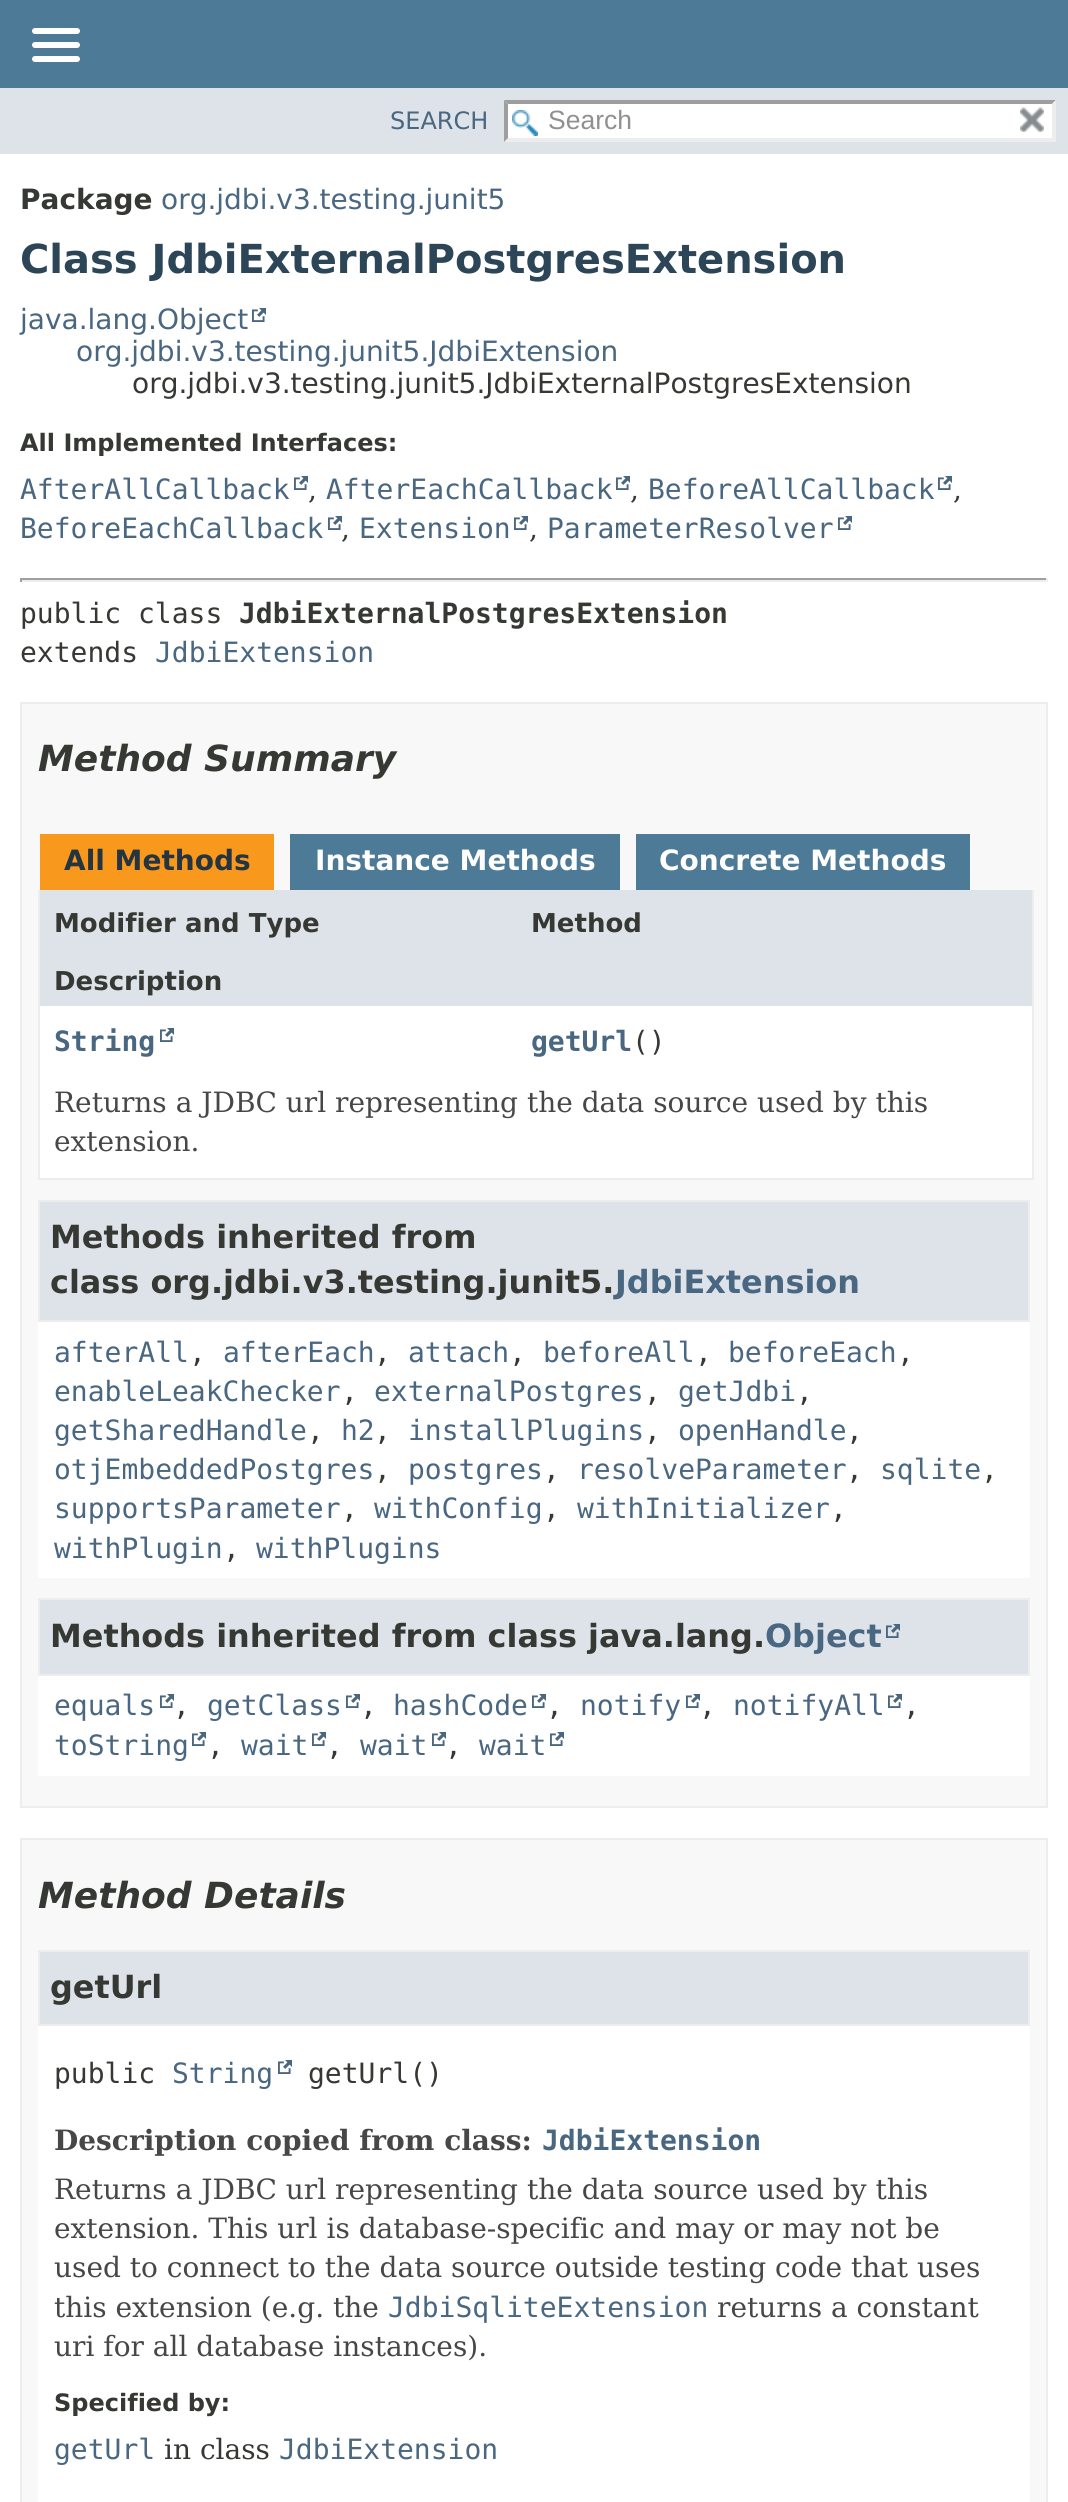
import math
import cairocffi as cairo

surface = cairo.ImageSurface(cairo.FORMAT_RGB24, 1068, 2502)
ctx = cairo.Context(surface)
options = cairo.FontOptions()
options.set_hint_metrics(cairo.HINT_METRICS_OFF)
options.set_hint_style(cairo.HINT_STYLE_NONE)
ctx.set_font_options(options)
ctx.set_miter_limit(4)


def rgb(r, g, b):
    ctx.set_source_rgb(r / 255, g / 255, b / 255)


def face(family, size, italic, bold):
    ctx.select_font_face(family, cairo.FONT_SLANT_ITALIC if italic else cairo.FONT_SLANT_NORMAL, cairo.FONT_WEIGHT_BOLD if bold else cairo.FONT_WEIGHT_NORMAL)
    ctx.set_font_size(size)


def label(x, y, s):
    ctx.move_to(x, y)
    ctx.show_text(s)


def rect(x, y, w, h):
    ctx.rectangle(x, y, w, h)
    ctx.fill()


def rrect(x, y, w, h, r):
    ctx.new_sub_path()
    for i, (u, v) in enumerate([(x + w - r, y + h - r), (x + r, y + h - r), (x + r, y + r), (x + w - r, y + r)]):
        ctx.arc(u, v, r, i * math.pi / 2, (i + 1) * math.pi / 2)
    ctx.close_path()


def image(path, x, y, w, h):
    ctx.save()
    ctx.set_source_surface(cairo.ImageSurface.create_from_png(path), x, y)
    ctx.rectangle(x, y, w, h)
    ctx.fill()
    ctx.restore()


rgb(255, 255, 255)
ctx.paint()
rgb(77, 122, 151)
rect(0, 0, 1068, 88)
rgb(255, 255, 255)
rrect(32, 28, 48, 6, 3)
ctx.fill()
rrect(32, 42, 48, 6, 3)
ctx.fill()
rrect(32, 56, 48, 6, 3)
ctx.fill()
rgb(222, 227, 233)
rect(0, 88, 1068, 66)
face('DejaVu Sans', 24, 0, 0)
rgb(74, 103, 130)
label(390, 129, 'SEARCH')
rgb(255, 255, 255)
rect(504, 100, 552, 42)
image('image0.png', 512, 110, 26, 26)
rgb(158, 158, 158)
ctx.new_path()
ctx.move_to(504, 100)
ctx.line_to(1056, 100)
ctx.line_to(1052, 104)
ctx.line_to(508, 104)
ctx.close_path()
ctx.fill()
rgb(237, 237, 237)
ctx.new_path()
ctx.move_to(1056, 100)
ctx.line_to(1056, 142)
ctx.line_to(1052, 138)
ctx.line_to(1052, 104)
ctx.close_path()
ctx.fill()
ctx.new_path()
ctx.move_to(1056, 142)
ctx.line_to(504, 142)
ctx.line_to(508, 138)
ctx.line_to(1052, 138)
ctx.close_path()
ctx.fill()
rgb(158, 158, 158)
ctx.new_path()
ctx.move_to(504, 142)
ctx.line_to(504, 100)
ctx.line_to(508, 104)
ctx.line_to(508, 138)
ctx.close_path()
ctx.fill()
face('Liberation Sans', 26.5, 0, 0)
rgb(144, 144, 144)
label(548, 129, 'Search')
image('image1.png', 1020, 107, 24, 25)
face('DejaVu Sans', 28, 0, 1)
rgb(53, 56, 51)
label(20, 209, 'Package')
face('DejaVu Sans', 28, 0, 0)
rgb(74, 103, 130)
label(161, 209, 'org.jdbi.v3.testing.junit5')
face('DejaVu Sans', 40, 0, 1)
rgb(44, 69, 87)
label(20, 273, 'Class JdbiExternalPostgresExtension')
face('DejaVu Sans', 28, 0, 0)
rgb(74, 103, 130)
label(20, 329, 'java.lang.Object')
image('image2.png', 252, 308, 14, 14)
label(76, 361, 'org.jdbi.v3.testing.junit5.JdbiExtension')
rgb(53, 56, 51)
label(132, 393, 'org.jdbi.v3.testing.junit5.JdbiExternalPostgresExtension')
face('DejaVu Sans', 24, 0, 1)
label(20, 451, 'All Implemented Interfaces:')
face('DejaVu Sans Mono', 28, 0, 0)
rgb(74, 103, 130)
label(20, 499, 'AfterAllCallback')
image('image2.png', 294, 476, 14, 14)
face('DejaVu Serif', 28, 0, 0)
rgb(53, 56, 51)
label(308, 499, ',')
face('DejaVu Sans Mono', 28, 0, 0)
rgb(74, 103, 130)
label(326, 499, 'AfterEachCallback')
image('image2.png', 616, 476, 14, 14)
face('DejaVu Serif', 28, 0, 0)
rgb(53, 56, 51)
label(630, 499, ',')
face('DejaVu Sans Mono', 28, 0, 0)
rgb(74, 103, 130)
label(648, 499, 'BeforeAllCallback')
image('image2.png', 938, 476, 14, 14)
face('DejaVu Serif', 28, 0, 0)
rgb(53, 56, 51)
label(953, 499, ',')
face('DejaVu Sans Mono', 28, 0, 0)
rgb(74, 103, 130)
label(20, 538, 'BeforeEachCallback')
image('image2.png', 328, 516, 14, 14)
face('DejaVu Serif', 28, 0, 0)
rgb(53, 56, 51)
label(341, 538, ',')
face('DejaVu Sans Mono', 28, 0, 0)
rgb(74, 103, 130)
label(359, 538, 'Extension')
image('image2.png', 514, 516, 14, 14)
face('DejaVu Serif', 28, 0, 0)
rgb(53, 56, 51)
label(529, 538, ',')
face('DejaVu Sans Mono', 28, 0, 0)
rgb(74, 103, 130)
label(547, 538, 'ParameterResolver')
image('image2.png', 838, 516, 14, 14)
rgb(159, 159, 159)
rect(20, 578, 1028, 2)
rgb(238, 238, 238)
rect(1046, 578, 2, 4)
rect(20, 580, 1028, 2)
rgb(159, 159, 159)
rect(20, 578, 2, 4)
rgb(53, 56, 51)
label(20, 623, 'public class')
face('DejaVu Sans Mono', 28, 0, 1)
label(239, 623, 'JdbiExternalPostgresExtension')
face('DejaVu Sans Mono', 28, 0, 0)
label(20, 662, 'extends')
rgb(74, 103, 130)
label(155, 662, 'JdbiExtension')
rgb(248, 248, 248)
ctx.rectangle(21, 703, 1026, 1104)
ctx.fill_preserve()
rgb(237, 237, 237)
ctx.stroke()
face('DejaVu Sans', 36, 1, 1)
rgb(53, 56, 51)
label(38, 771, 'Method Summary')
rgb(248, 152, 29)
rect(40, 834, 234, 56)
face('DejaVu Sans', 28, 0, 1)
rgb(37, 52, 65)
label(64, 870, 'All Methods')
rgb(77, 122, 151)
rect(290, 834, 330, 56)
rgb(255, 255, 255)
label(315, 870, 'Instance Methods')
rgb(77, 122, 151)
rect(636, 834, 334, 56)
rgb(255, 255, 255)
label(659, 870, 'Concrete Methods')
rgb(237, 237, 237)
rect(1032, 890, 2, 290)
rect(38, 1178, 996, 2)
rect(38, 890, 2, 290)
rgb(222, 227, 233)
rect(40, 890, 992, 116)
face('DejaVu Sans', 26, 0, 1)
rgb(53, 56, 51)
label(54, 932, 'Modifier and Type')
label(531, 932, 'Method')
label(54, 990, 'Description')
rgb(255, 255, 255)
rect(40, 1006, 992, 172)
face('DejaVu Sans Mono', 28, 0, 1)
rgb(74, 103, 130)
label(54, 1051, 'String')
image('image2.png', 160, 1028, 14, 14)
label(531, 1051, 'getUrl')
face('DejaVu Sans Mono', 28, 0, 0)
rgb(53, 56, 51)
label(632, 1051, '()')
face('DejaVu Serif', 28, 0, 0)
rgb(71, 71, 71)
label(54, 1112, 'Returns a JDBC url representing the data source used by this')
label(54, 1151, 'extension.')
rgb(255, 255, 255)
rect(38, 1322, 992, 256)
rgb(222, 227, 233)
ctx.rectangle(39, 1201, 990, 120)
ctx.fill_preserve()
rgb(237, 237, 237)
ctx.stroke()
face('DejaVu Sans', 31.9, 0, 1)
rgb(53, 56, 51)
label(50, 1248, 'Methods inherited from')
label(50, 1293, 'class org.jdbi.v3.testing.junit5.')
rgb(74, 103, 130)
label(615, 1293, 'JdbiExtension')
face('DejaVu Sans Mono', 28, 0, 0)
label(54, 1362, 'afterAll')
rgb(53, 56, 51)
label(189, 1362, ',')
rgb(74, 103, 130)
label(223, 1362, 'afterEach')
rgb(53, 56, 51)
label(374, 1362, ',')
rgb(74, 103, 130)
label(408, 1362, 'attach')
rgb(53, 56, 51)
label(509, 1362, ',')
rgb(74, 103, 130)
label(543, 1362, 'beforeAll')
rgb(53, 56, 51)
label(695, 1362, ',')
rgb(74, 103, 130)
label(728, 1362, 'beforeEach')
rgb(53, 56, 51)
label(897, 1362, ',')
rgb(74, 103, 130)
label(54, 1401, 'enableLeakChecker')
rgb(53, 56, 51)
label(341, 1401, ',')
rgb(74, 103, 130)
label(374, 1401, 'externalPostgres')
rgb(53, 56, 51)
label(644, 1401, ',')
rgb(74, 103, 130)
label(678, 1401, 'getJdbi')
rgb(53, 56, 51)
label(796, 1401, ',')
rgb(74, 103, 130)
label(54, 1440, 'getSharedHandle')
rgb(53, 56, 51)
label(307, 1440, ',')
rgb(74, 103, 130)
label(341, 1440, 'h2')
rgb(53, 56, 51)
label(374, 1440, ',')
rgb(74, 103, 130)
label(408, 1440, 'installPlugins')
rgb(53, 56, 51)
label(644, 1440, ',')
rgb(74, 103, 130)
label(678, 1440, 'openHandle')
rgb(53, 56, 51)
label(846, 1440, ',')
rgb(74, 103, 130)
label(54, 1479, 'otjEmbeddedPostgres')
rgb(53, 56, 51)
label(374, 1479, ',')
rgb(74, 103, 130)
label(408, 1479, 'postgres')
rgb(53, 56, 51)
label(543, 1479, ',')
rgb(74, 103, 130)
label(577, 1479, 'resolveParameter')
rgb(53, 56, 51)
label(846, 1479, ',')
rgb(74, 103, 130)
label(880, 1479, 'sqlite')
rgb(53, 56, 51)
label(981, 1479, ',')
rgb(74, 103, 130)
label(54, 1518, 'supportsParameter')
rgb(53, 56, 51)
label(341, 1518, ',')
rgb(74, 103, 130)
label(374, 1518, 'withConfig')
rgb(53, 56, 51)
label(543, 1518, ',')
rgb(74, 103, 130)
label(577, 1518, 'withInitializer')
rgb(53, 56, 51)
label(830, 1518, ',')
rgb(74, 103, 130)
label(54, 1558, 'withPlugin')
rgb(53, 56, 51)
label(223, 1558, ',')
rgb(74, 103, 130)
label(256, 1558, 'withPlugins')
rgb(255, 255, 255)
rect(38, 1676, 992, 100)
rgb(222, 227, 233)
ctx.rectangle(39, 1599, 990, 76)
ctx.fill_preserve()
rgb(237, 237, 237)
ctx.stroke()
face('DejaVu Sans', 31.9, 0, 1)
rgb(53, 56, 51)
label(50, 1647, 'Methods inherited from class java.lang.')
rgb(74, 103, 130)
label(765, 1647, 'Object')
image('image3.png', 886, 1624, 14, 14)
face('DejaVu Sans Mono', 28, 0, 0)
label(54, 1715, 'equals')
image('image2.png', 160, 1694, 14, 14)
rgb(53, 56, 51)
label(173, 1715, ',')
rgb(74, 103, 130)
label(207, 1715, 'getClass')
image('image2.png', 346, 1694, 14, 14)
rgb(53, 56, 51)
label(360, 1715, ',')
rgb(74, 103, 130)
label(393, 1715, 'hashCode')
image('image2.png', 532, 1694, 14, 14)
rgb(53, 56, 51)
label(546, 1715, ',')
rgb(74, 103, 130)
label(580, 1715, 'notify')
image('image2.png', 686, 1694, 14, 14)
rgb(53, 56, 51)
label(699, 1715, ',')
rgb(74, 103, 130)
label(733, 1715, 'notifyAll')
image('image2.png', 888, 1694, 14, 14)
rgb(53, 56, 51)
label(903, 1715, ',')
rgb(74, 103, 130)
label(54, 1755, 'toString')
image('image2.png', 192, 1732, 14, 14)
rgb(53, 56, 51)
label(207, 1755, ',')
rgb(74, 103, 130)
label(241, 1755, 'wait')
image('image2.png', 312, 1732, 14, 14)
rgb(53, 56, 51)
label(326, 1755, ',')
rgb(74, 103, 130)
label(360, 1755, 'wait')
image('image2.png', 432, 1732, 14, 14)
rgb(53, 56, 51)
label(445, 1755, ',')
rgb(74, 103, 130)
label(479, 1755, 'wait')
image('image2.png', 550, 1732, 14, 14)
rgb(248, 248, 248)
ctx.rectangle(21, 1839, 1026, 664)
ctx.fill_preserve()
rgb(237, 237, 237)
ctx.stroke()
face('DejaVu Sans', 36, 1, 1)
rgb(53, 56, 51)
label(38, 1908, 'Method Details')
rgb(255, 255, 255)
rect(38, 2026, 992, 476)
rgb(222, 227, 233)
ctx.rectangle(39, 1951, 990, 74)
ctx.fill_preserve()
rgb(237, 237, 237)
ctx.stroke()
face('DejaVu Sans', 31.9, 0, 1)
rgb(53, 56, 51)
label(50, 1998, 'getUrl')
face('DejaVu Sans Mono', 28, 0, 0)
label(54, 2083, 'public')
rgb(74, 103, 130)
label(172, 2083, 'String')
image('image2.png', 278, 2060, 14, 14)
rgb(53, 56, 51)
label(308, 2083, 'getUrl()')
face('DejaVu Serif', 28, 0, 1)
rgb(71, 71, 71)
label(54, 2150, 'Description copied from class:')
face('DejaVu Sans Mono', 28, 0, 1)
rgb(74, 103, 130)
label(542, 2150, 'JdbiExtension')
face('DejaVu Serif', 28, 0, 0)
rgb(71, 71, 71)
label(54, 2199, 'Returns a JDBC url representing the data source used by this')
label(54, 2238, 'extension. This url is database-specific and may or may not be')
label(54, 2277, 'used to connect to the data source outside testing code that uses')
label(54, 2317, 'this extension (e.g. the')
face('DejaVu Sans Mono', 28, 0, 0)
rgb(74, 103, 130)
label(388, 2317, 'JdbiSqliteExtension')
face('DejaVu Serif', 28, 0, 0)
rgb(71, 71, 71)
label(717, 2317, 'returns a constant')
label(54, 2356, 'uri for all database instances).')
face('DejaVu Sans', 24, 0, 1)
rgb(53, 56, 51)
label(54, 2411, 'Specified by:')
face('DejaVu Sans Mono', 28, 0, 0)
rgb(74, 103, 130)
label(54, 2459, 'getUrl')
face('DejaVu Serif', 28, 0, 0)
rgb(53, 56, 51)
label(164, 2459, 'in class')
face('DejaVu Sans Mono', 28, 0, 0)
rgb(74, 103, 130)
label(279, 2459, 'JdbiExtension')
surface.write_to_png('render.png')
